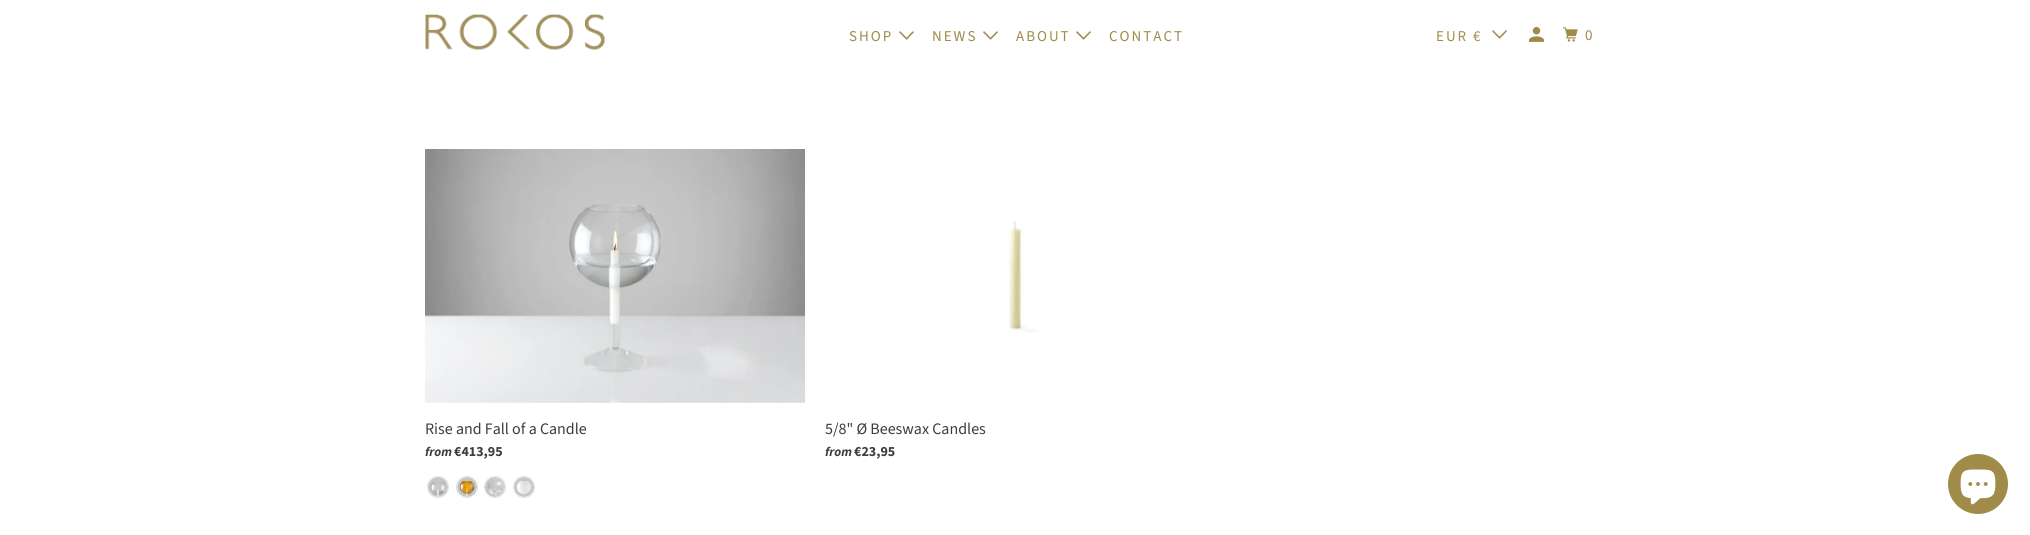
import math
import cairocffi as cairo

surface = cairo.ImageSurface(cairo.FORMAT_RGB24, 2030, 535)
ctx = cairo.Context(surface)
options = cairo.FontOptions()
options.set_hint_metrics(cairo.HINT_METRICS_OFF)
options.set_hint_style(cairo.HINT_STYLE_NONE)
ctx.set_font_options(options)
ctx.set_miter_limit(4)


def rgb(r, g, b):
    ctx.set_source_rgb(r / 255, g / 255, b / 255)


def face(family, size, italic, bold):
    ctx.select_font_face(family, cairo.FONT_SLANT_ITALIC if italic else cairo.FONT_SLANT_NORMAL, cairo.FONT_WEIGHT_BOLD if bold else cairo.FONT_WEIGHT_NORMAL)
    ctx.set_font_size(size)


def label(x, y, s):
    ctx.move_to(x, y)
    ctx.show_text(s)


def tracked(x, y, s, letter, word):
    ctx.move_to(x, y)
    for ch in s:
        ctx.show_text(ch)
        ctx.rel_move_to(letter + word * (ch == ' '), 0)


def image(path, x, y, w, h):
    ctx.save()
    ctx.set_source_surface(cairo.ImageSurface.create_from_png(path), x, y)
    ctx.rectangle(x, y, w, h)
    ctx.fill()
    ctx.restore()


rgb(255, 255, 255)
ctx.paint()
image('image0.png', 425, 14, 180, 36)
face('Source Sans Pro', 15, 0, 0)
rgb(160, 139, 73)
tracked(849, 41, 'SHOP', 2, 0)
image('image1.png', 899, 31, 15, 9)
tracked(932, 41, 'NEWS', 2, 0)
image('image1.png', 983, 31, 15, 9)
tracked(1016, 41, 'ABOUT', 2, 0)
image('image1.png', 1076, 31, 15, 9)
tracked(1109, 41, 'CONTACT', 2, 0)
tracked(1436, 41, 'EUR €', 2, 0)
image('image1.png', 1492, 30, 15, 9)
image('image2.png', 1529, 26, 15, 16)
image('image3.png', 1563, 27, 15, 15)
tracked(1585, 40, '0', 2, 0)
image('image4.png', 425, 149, 380, 254)
face('Source Sans Pro', 16, 0, 0)
rgb(62, 62, 62)
label(425, 434, 'Rise and Fall of a Candle')
face('Source Sans Pro', 13, 1, 1)
label(425, 456, 'from')
face('Source Sans Pro', 14, 0, 1)
label(454, 456, '€413,95')
image('image5.png', 428, 477, 20, 20)
ctx.arc(438, 487, 10.5, 0, 2 * math.pi)
rgb(226, 226, 226)
ctx.set_line_width(1)
ctx.stroke()
image('image6.png', 457, 477, 20, 20)
ctx.arc(467, 487, 10.5, 0, 2 * math.pi)
ctx.stroke()
image('image7.png', 485, 477, 20, 20)
ctx.arc(495, 487, 10.5, 0, 2 * math.pi)
ctx.stroke()
image('image8.png', 514, 477, 20, 20)
ctx.arc(524, 487, 10.5, 0, 2 * math.pi)
ctx.stroke()
image('image9.png', 1008, 221, 34, 112)
face('Source Sans Pro', 16, 0, 0)
rgb(62, 62, 62)
label(825, 434, '5/8" Ø Beeswax Candles')
face('Source Sans Pro', 13, 1, 1)
label(825, 456, 'from')
face('Source Sans Pro', 14, 0, 1)
label(854, 456, '€23,95')
rgb(160, 139, 73)
ctx.new_path()
ctx.arc(1978, 484, 30, 0, 2 * math.pi)
ctx.fill()
image('image10.png', 1960, 469, 36, 36)
surface.write_to_png('render.png')
